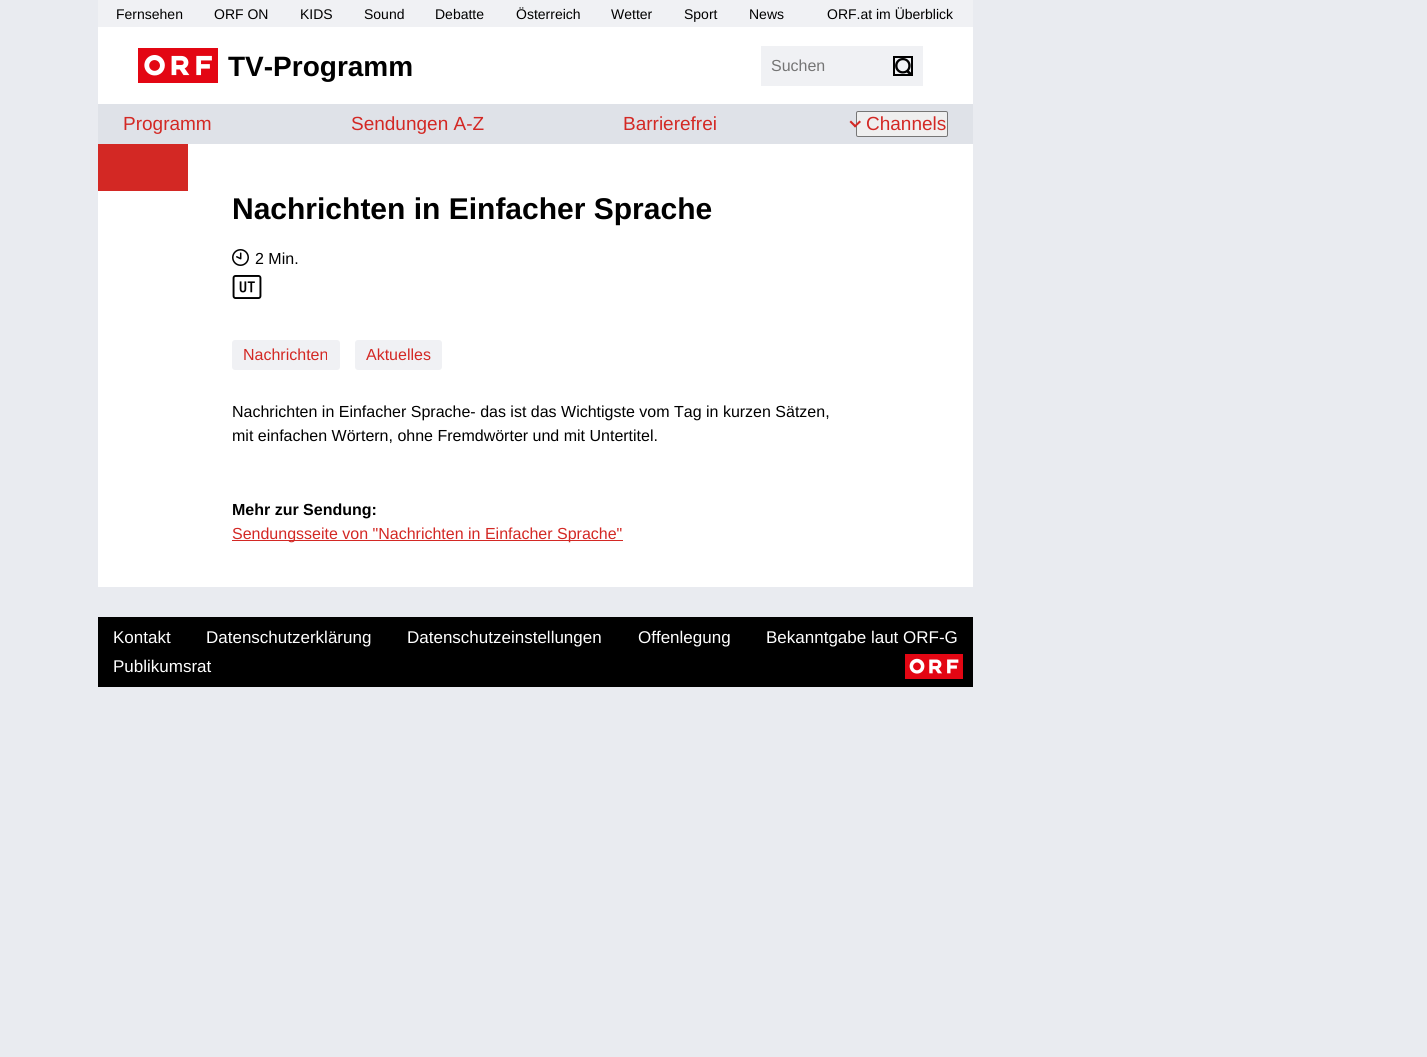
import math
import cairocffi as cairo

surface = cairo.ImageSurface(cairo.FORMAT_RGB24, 1427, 1057)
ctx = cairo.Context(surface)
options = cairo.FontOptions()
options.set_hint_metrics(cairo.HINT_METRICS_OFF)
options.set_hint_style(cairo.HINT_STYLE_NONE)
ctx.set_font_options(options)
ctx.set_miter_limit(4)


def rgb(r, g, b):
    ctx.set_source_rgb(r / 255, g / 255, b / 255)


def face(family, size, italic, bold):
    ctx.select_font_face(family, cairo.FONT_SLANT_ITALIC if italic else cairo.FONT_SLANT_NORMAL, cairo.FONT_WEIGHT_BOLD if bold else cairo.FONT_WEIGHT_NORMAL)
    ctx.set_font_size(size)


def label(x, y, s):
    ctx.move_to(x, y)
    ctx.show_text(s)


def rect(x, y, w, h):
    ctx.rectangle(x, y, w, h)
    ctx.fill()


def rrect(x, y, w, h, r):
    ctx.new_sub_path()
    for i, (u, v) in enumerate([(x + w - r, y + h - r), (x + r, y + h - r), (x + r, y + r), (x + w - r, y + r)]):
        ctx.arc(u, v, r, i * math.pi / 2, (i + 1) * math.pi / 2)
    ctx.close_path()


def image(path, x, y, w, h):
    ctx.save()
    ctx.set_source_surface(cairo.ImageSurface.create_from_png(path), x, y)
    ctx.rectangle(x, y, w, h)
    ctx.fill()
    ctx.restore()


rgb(233, 235, 240)
ctx.paint()
rgb(240, 241, 244)
rect(98, 0, 875, 27)
face('Liberation Sans', 14, 0, 0)
rgb(0, 0, 0)
label(116, 19, 'Fernsehen')
label(214, 19, 'ORF ON')
label(300, 19, 'KIDS')
label(364, 19, 'Sound')
label(435, 19, 'Debatte')
label(516, 19, 'Österreich')
label(611, 19, 'Wetter')
label(684, 19, 'Sport')
label(749, 19, 'News')
label(827, 19, 'ORF.at im Überblick')
rgb(255, 255, 255)
rect(98, 27, 875, 77)
image('image0.png', 138, 48, 80, 35)
face('Liberation Sans', 28, 0, 1)
rgb(0, 0, 0)
label(228, 76, 'TV-Programm')
rgb(240, 241, 244)
rect(761, 46, 162, 40)
face('Liberation Sans', 16, 0, 0)
rgb(117, 117, 117)
label(771, 71, 'Suchen')
image('image1.png', 895, 58, 16, 16)
ctx.rectangle(894, 57, 18, 18)
rgb(0, 0, 0)
ctx.stroke()
rgb(223, 226, 232)
rect(98, 104, 875, 40)
face('Liberation Sans', 19, 0, 0)
rgb(211, 40, 36)
label(123, 130, 'Programm')
label(351, 130, 'Sendungen A-Z')
label(623, 130, 'Barrierefrei')
rgb(239, 239, 239)
rrect(856.5, 111.5, 91, 25, 1.5)
ctx.fill_preserve()
rgb(118, 118, 118)
ctx.set_line_width(1)
ctx.stroke()
rgb(211, 40, 36)
ctx.new_path()
ctx.move_to(854, 126)
ctx.line_to(859.5, 120.5)
ctx.line_to(861, 122)
ctx.line_to(855, 127.5)
ctx.close_path()
ctx.fill()
ctx.new_path()
ctx.move_to(849.5, 122)
ctx.line_to(851, 120.5)
ctx.line_to(856.5, 126)
ctx.line_to(855, 127.5)
ctx.close_path()
ctx.fill()
label(866, 130, 'Channels')
rgb(255, 255, 255)
rect(98, 144, 875, 443)
rgb(211, 40, 36)
rect(98, 144, 90, 47)
face('Liberation Sans', 30, 0, 1)
rgb(0, 0, 0)
label(232, 219, 'Nachrichten in Einfacher Sprache')
image('image2.png', 232, 249, 17, 17)
face('Liberation Sans', 16, 0, 0)
label(255, 264, '2 Min.')
image('image3.png', 232, 275, 30, 24)
rgb(240, 241, 244)
rrect(232, 340, 108, 30, 3)
ctx.fill()
rgb(211, 40, 36)
label(243, 360, 'Nachrichten')
rgb(240, 241, 244)
rrect(355, 340, 87, 30, 3)
ctx.fill()
rgb(211, 40, 36)
label(366, 360, 'Aktuelles')
rgb(0, 0, 0)
label(232, 417, 'Nachrichten in Einfacher Sprache- das ist das Wichtigste vom Tag in kurzen Sätzen,')
label(232, 441, 'mit einfachen Wörtern, ohne Fremdwörter und mit Untertitel.')
face('Liberation Sans', 16, 0, 1)
label(232, 515, 'Mehr zur Sendung:')
rgb(211, 40, 36)
rect(232, 540, 391, 1)
face('Liberation Sans', 16, 0, 0)
label(232, 539, 'Sendungsseite von "Nachrichten in Einfacher Sprache"')
rgb(0, 0, 0)
rect(98, 617, 875, 70)
face('Liberation Sans', 17, 0, 0)
rgb(255, 255, 255)
label(113, 643, 'Kontakt')
label(206, 643, 'Datenschutzerklärung')
label(407, 643, 'Datenschutzeinstellungen')
label(638, 643, 'Offenlegung')
label(766, 643, 'Bekanntgabe laut ORF-G')
label(113, 672, 'Publikumsrat')
image('image4.png', 905, 654, 58, 25)
surface.write_to_png('render.png')
